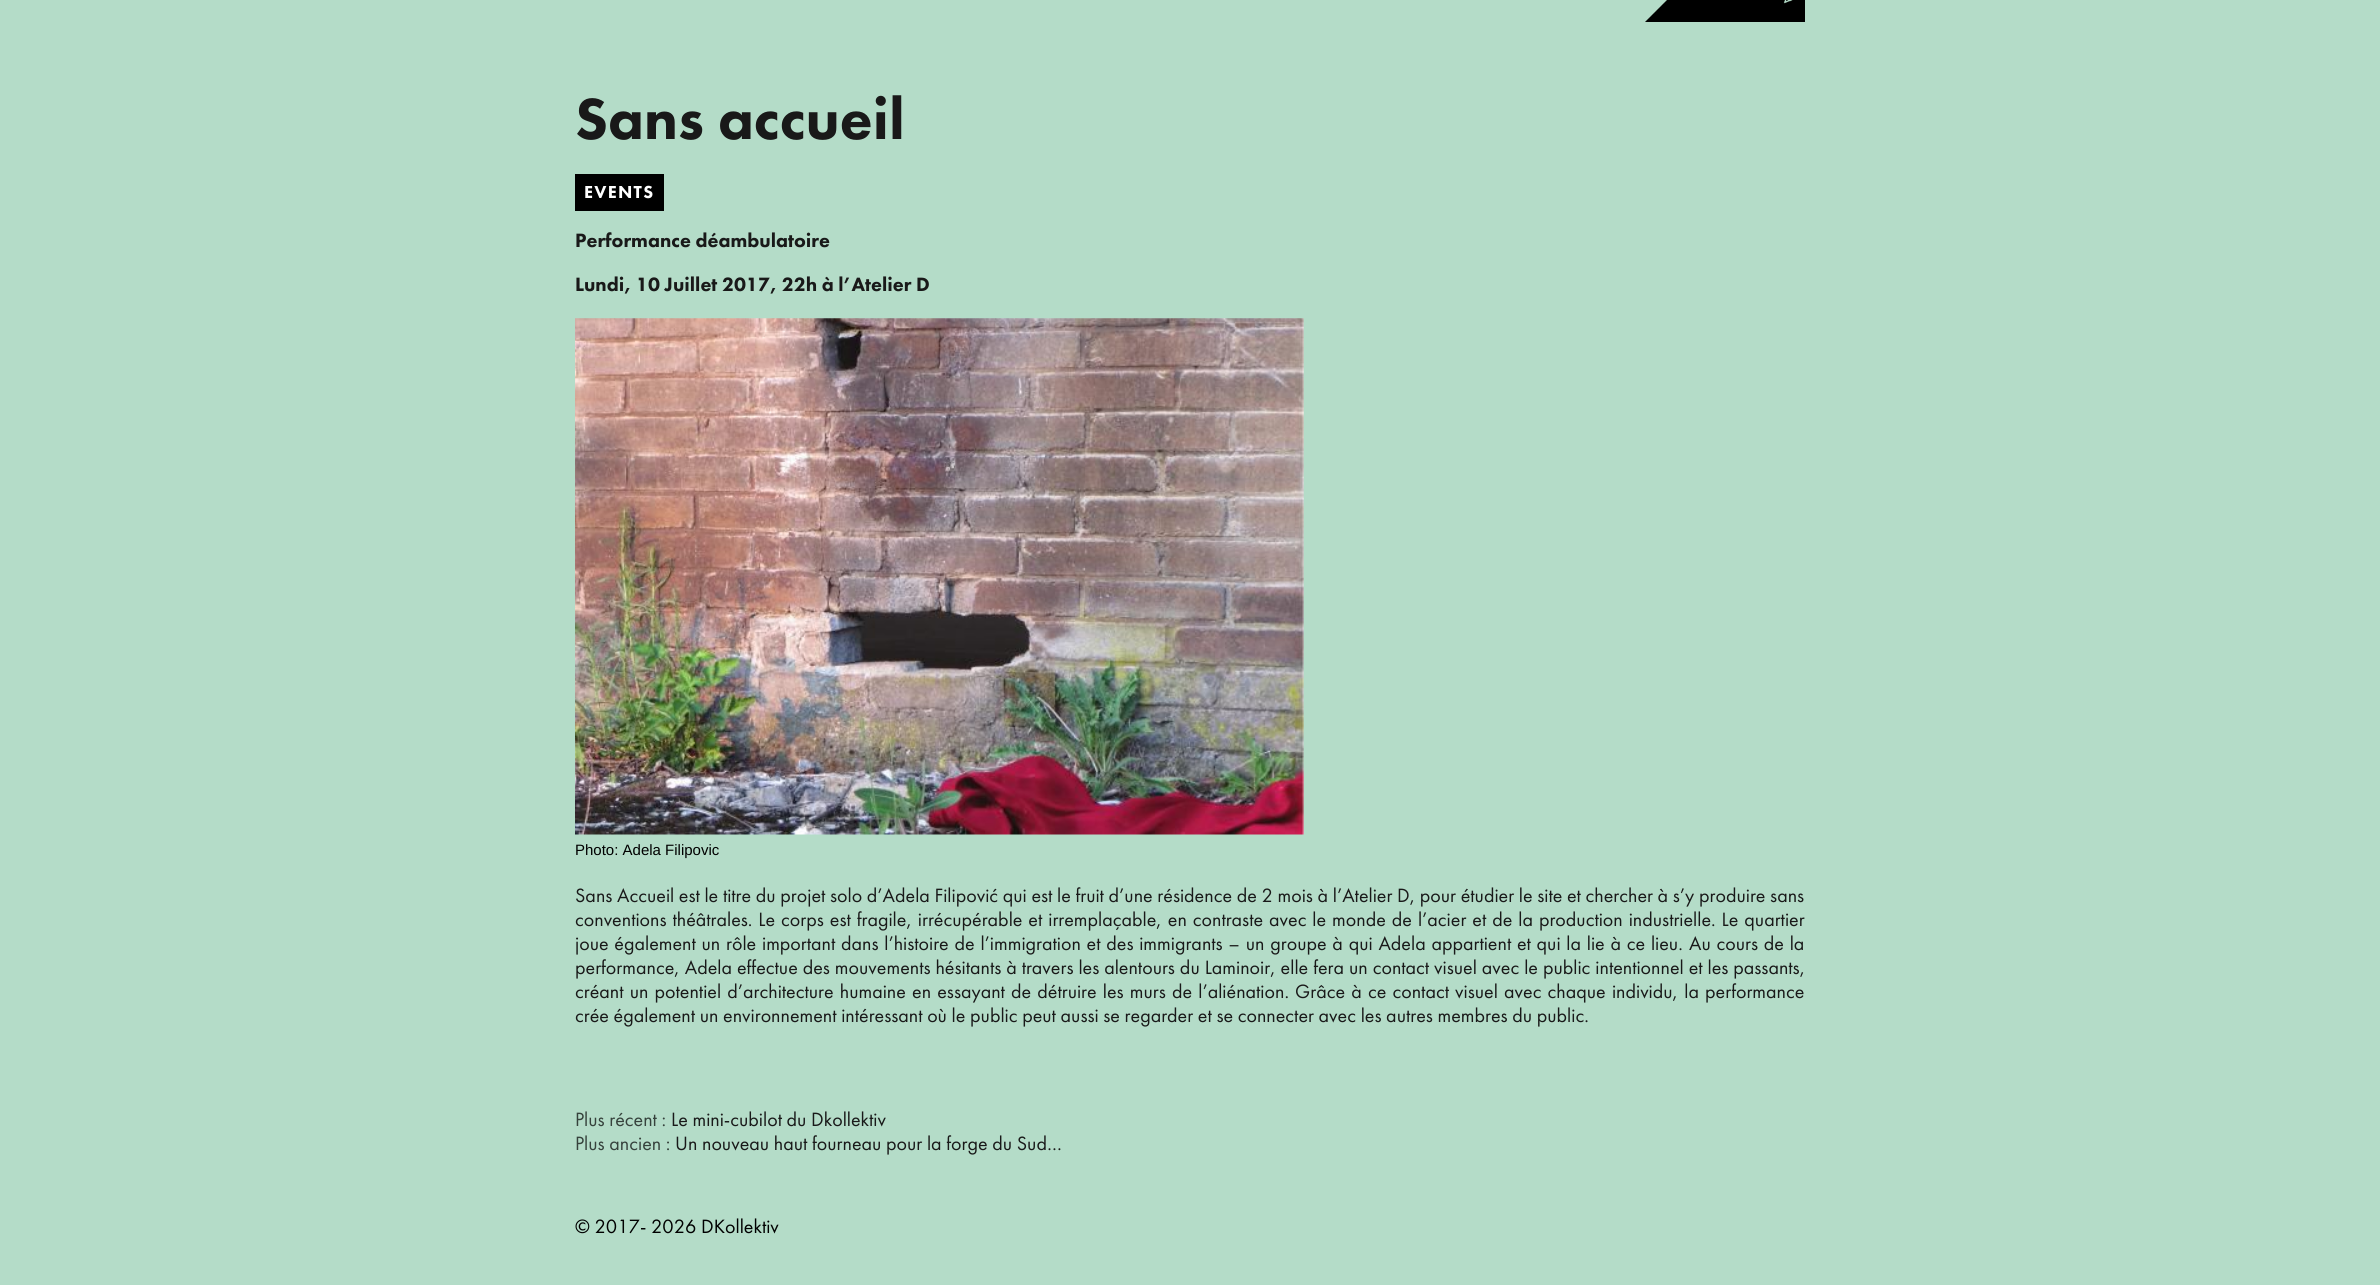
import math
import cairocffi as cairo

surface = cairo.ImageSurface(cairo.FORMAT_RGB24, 2380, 1285)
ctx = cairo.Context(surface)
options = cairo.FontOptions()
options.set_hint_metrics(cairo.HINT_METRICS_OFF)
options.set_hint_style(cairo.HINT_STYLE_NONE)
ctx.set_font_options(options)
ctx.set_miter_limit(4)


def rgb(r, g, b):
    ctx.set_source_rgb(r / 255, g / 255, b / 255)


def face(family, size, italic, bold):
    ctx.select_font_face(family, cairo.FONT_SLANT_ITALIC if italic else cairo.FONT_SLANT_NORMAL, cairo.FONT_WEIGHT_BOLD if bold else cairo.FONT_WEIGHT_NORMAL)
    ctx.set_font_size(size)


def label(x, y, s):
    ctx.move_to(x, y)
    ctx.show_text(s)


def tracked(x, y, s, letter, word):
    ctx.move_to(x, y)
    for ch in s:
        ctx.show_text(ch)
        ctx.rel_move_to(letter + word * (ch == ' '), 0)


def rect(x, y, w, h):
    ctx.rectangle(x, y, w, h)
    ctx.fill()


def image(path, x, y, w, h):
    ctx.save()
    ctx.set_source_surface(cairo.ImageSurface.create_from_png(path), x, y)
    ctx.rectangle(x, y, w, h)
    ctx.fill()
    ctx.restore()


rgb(180, 220, 200)
ctx.paint()
image('image0.png', 1645, 0, 160, 22)
face('Futura PT Black', 60, 0, 0)
rgb(25, 25, 25)
label(575, 139, 'Sans accueil')
rgb(0, 0, 0)
rect(575, 174, 89, 37)
face('Futura PT Black', 18, 0, 0)
rgb(255, 255, 255)
tracked(584, 198, 'EVENTS', 1.25, 0)
face('Futura PT Black', 20, 0, 0)
rgb(25, 25, 25)
label(575, 247, 'Performance déambulatoire')
label(575, 291, 'Lundi, 10 Juillet 2017, 22h à l’Atelier D')
image('image1.png', 575, 318, 729, 517)
face('Liberation Sans', 15, 0, 0)
rgb(0, 0, 0)
label(575, 855, 'Photo: Adela Filipovic')
face('Futura PT', 20, 0, 0)
rgb(25, 25, 25)
label(575, 902, 'Sans Accueil est le titre du projet solo d’Adela Filipović qui est le fruit d’une résidence de 2 mois à l’Atelier D, pour étudier le site et chercher à s’y produire sans')
tracked(575, 926, 'conventions théâtrales. Le corps est fragile, irrécupérable et irremplaçable, en contraste avec le monde de l’acier et de la production industrielle. Le quartier', 0, 1.3)
tracked(575, 950, 'joue également un rôle important dans l’histoire de l’immigration et des immigrants – un groupe à qui Adela appartient et qui la lie à ce lieu.', 0, 1.1)
tracked(1689, 950, 'Au cours de la', 0, 1.1)
tracked(575, 974, 'performance, Adela effectue des mouvements hésitants à travers les alentours du Laminoir, elle fera un contact visuel avec le public intentionnel et les passants,', 0, 0.3)
tracked(575, 998, 'créant un potentiel d’architecture humaine en essayant de détruire les murs de l’aliénation. Grâce à ce contact visuel avec chaque individu, la performance', 0, 1.5)
label(575, 1022, 'crée également un environnement intéressant où le public peut aussi se regarder et se connecter avec les autres membres du public.')
rgb(54, 66, 60)
label(575, 1126, 'Plus récent :')
rgb(25, 25, 25)
label(671, 1126, 'Le mini-cubilot du Dkollektiv')
rgb(54, 66, 60)
label(575, 1150, 'Plus ancien :')
rgb(25, 25, 25)
label(675, 1150, 'Un nouveau haut fourneau pour la forge du Sud…')
rgb(0, 0, 0)
label(575, 1233, '© 2017- 2026 DKollektiv')
surface.write_to_png('render.png')
